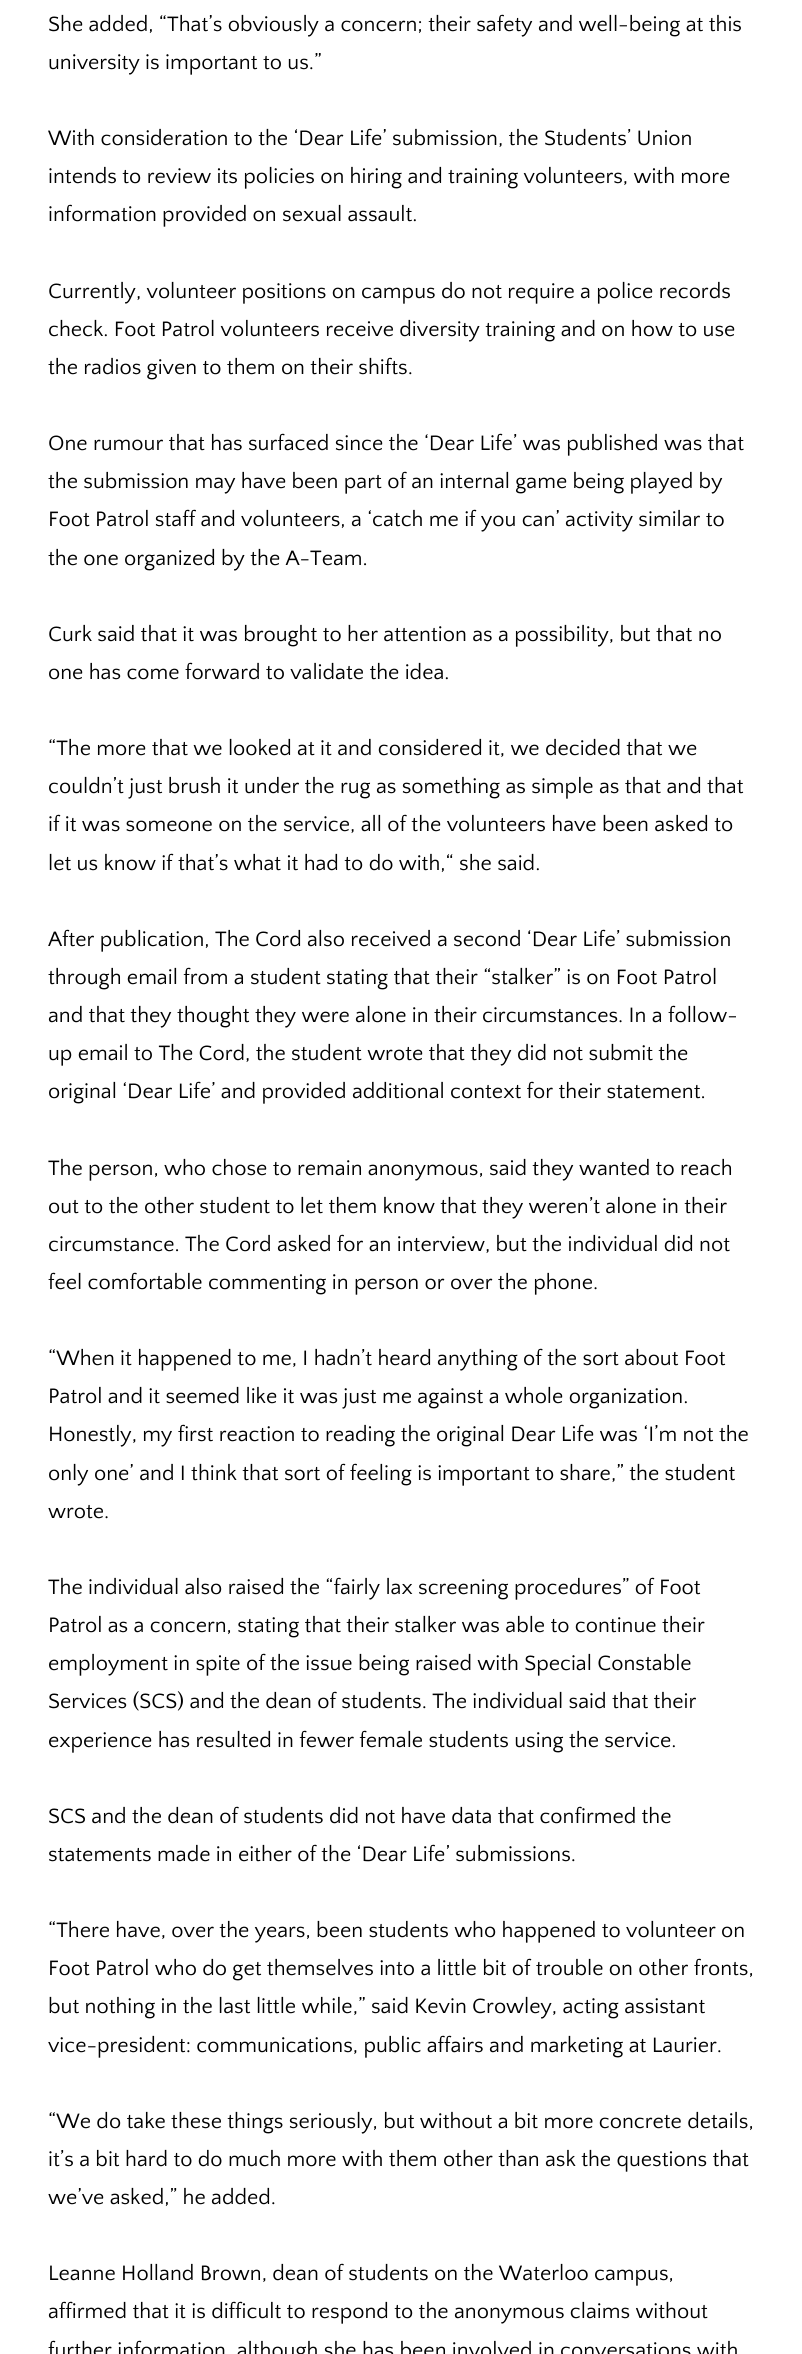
import math
import cairocffi as cairo

surface = cairo.ImageSurface(cairo.FORMAT_RGB24, 802, 2354)
ctx = cairo.Context(surface)
options = cairo.FontOptions()
options.set_hint_metrics(cairo.HINT_METRICS_OFF)
options.set_hint_style(cairo.HINT_STYLE_NONE)
ctx.set_font_options(options)
ctx.set_miter_limit(4)


def rgb(r, g, b):
    ctx.set_source_rgb(r / 255, g / 255, b / 255)


def face(family, size, italic, bold):
    ctx.select_font_face(family, cairo.FONT_SLANT_ITALIC if italic else cairo.FONT_SLANT_NORMAL, cairo.FONT_WEIGHT_BOLD if bold else cairo.FONT_WEIGHT_NORMAL)
    ctx.set_font_size(size)


def label(x, y, s):
    ctx.move_to(x, y)
    ctx.show_text(s)


rgb(255, 255, 255)
ctx.paint()
face('Quattrocento Sans', 21.8, 0, 0)
rgb(0, 0, 0)
label(48, 31, 'She added, “That’s obviously a concern; their safety and well-being at this')
label(48, 69, 'university is important to us.”')
label(48, 145, 'With consideration to the ‘Dear Life’ submission, the Students’ Union')
label(48, 183, 'intends to review its policies on hiring and training volunteers, with more')
label(48, 221, 'information provided on sexual assault.')
label(48, 298, 'Currently, volunteer positions on campus do not require a police records')
label(48, 336, 'check. Foot Patrol volunteers receive diversity training and on how to use')
label(48, 374, 'the radios given to them on their shifts.')
label(48, 450, 'One rumour that has surfaced since the ‘Dear Life’ was published was that')
label(48, 488, 'the submission may have been part of an internal game being played by')
label(48, 526, 'Foot Patrol staff and volunteers, a ‘catch me if you can’ activity similar to')
label(48, 565, 'the one organized by the A-Team.')
label(48, 641, 'Curk said that it was brought to her attention as a possibility, but that no')
label(48, 679, 'one has come forward to validate the idea.')
label(48, 755, '“The more that we looked at it and considered it, we decided that we')
label(48, 793, 'couldn’t just brush it under the rug as something as simple as that and that')
label(48, 831, 'if it was someone on the service, all of the volunteers have been asked to')
label(48, 870, 'let us know if that’s what it had to do with,“ she said.')
label(48, 946, 'After publication, The Cord also received a second ‘Dear Life’ submission')
label(48, 984, 'through email from a student stating that their “stalker” is on Foot Patrol')
label(48, 1022, 'and that they thought they were alone in their circumstances. In a follow-')
label(48, 1060, 'up email to The Cord, the student wrote that they did not submit the')
label(48, 1098, 'original ‘Dear Life’ and provided additional context for their statement.')
label(48, 1175, 'The person, who chose to remain anonymous, said they wanted to reach')
label(48, 1213, 'out to the other student to let them know that they weren’t alone in their')
label(48, 1251, 'circumstance. The Cord asked for an interview, but the individual did not')
label(48, 1289, 'feel comfortable commenting in person or over the phone.')
label(48, 1365, '“When it happened to me, I hadn’t heard anything of the sort about Foot')
label(48, 1403, 'Patrol and it seemed like it was just me against a whole organization.')
label(48, 1441, 'Honestly, my first reaction to reading the original Dear Life was ‘I’m not the')
label(48, 1480, 'only one’ and I think that sort of feeling is important to share,” the student')
label(48, 1518, 'wrote.')
label(48, 1594, 'The individual also raised the “fairly lax screening procedures” of Foot')
label(48, 1632, 'Patrol as a concern, stating that their stalker was able to continue their')
label(48, 1670, 'employment in spite of the issue being raised with Special Constable')
label(48, 1708, 'Services (SCS) and the dean of students. The individual said that their')
label(48, 1747, 'experience has resulted in fewer female students using the service.')
label(48, 1823, 'SCS and the dean of students did not have data that confirmed the')
label(48, 1861, 'statements made in either of the ‘Dear Life’ submissions.')
label(48, 1937, '“There have, over the years, been students who happened to volunteer on')
label(48, 1975, 'Foot Patrol who do get themselves into a little bit of trouble on other fronts,')
label(48, 2013, 'but nothing in the last little while,” said Kevin Crowley, acting assistant')
label(48, 2052, 'vice-president: communications, public affairs and marketing at Laurier.')
label(48, 2128, '“We do take these things seriously, but without a bit more concrete details,')
label(48, 2166, 'it’s a bit hard to do much more with them other than ask the questions that')
label(48, 2204, 'we’ve asked,” he added.')
label(48, 2280, 'Leanne Holland Brown, dean of students on the Waterloo campus,')
label(48, 2318, 'affirmed that it is difficult to respond to the anonymous claims without')
label(48, 2357, 'further information, although she has been involved in conversations with')
surface.write_to_png('render.png')
